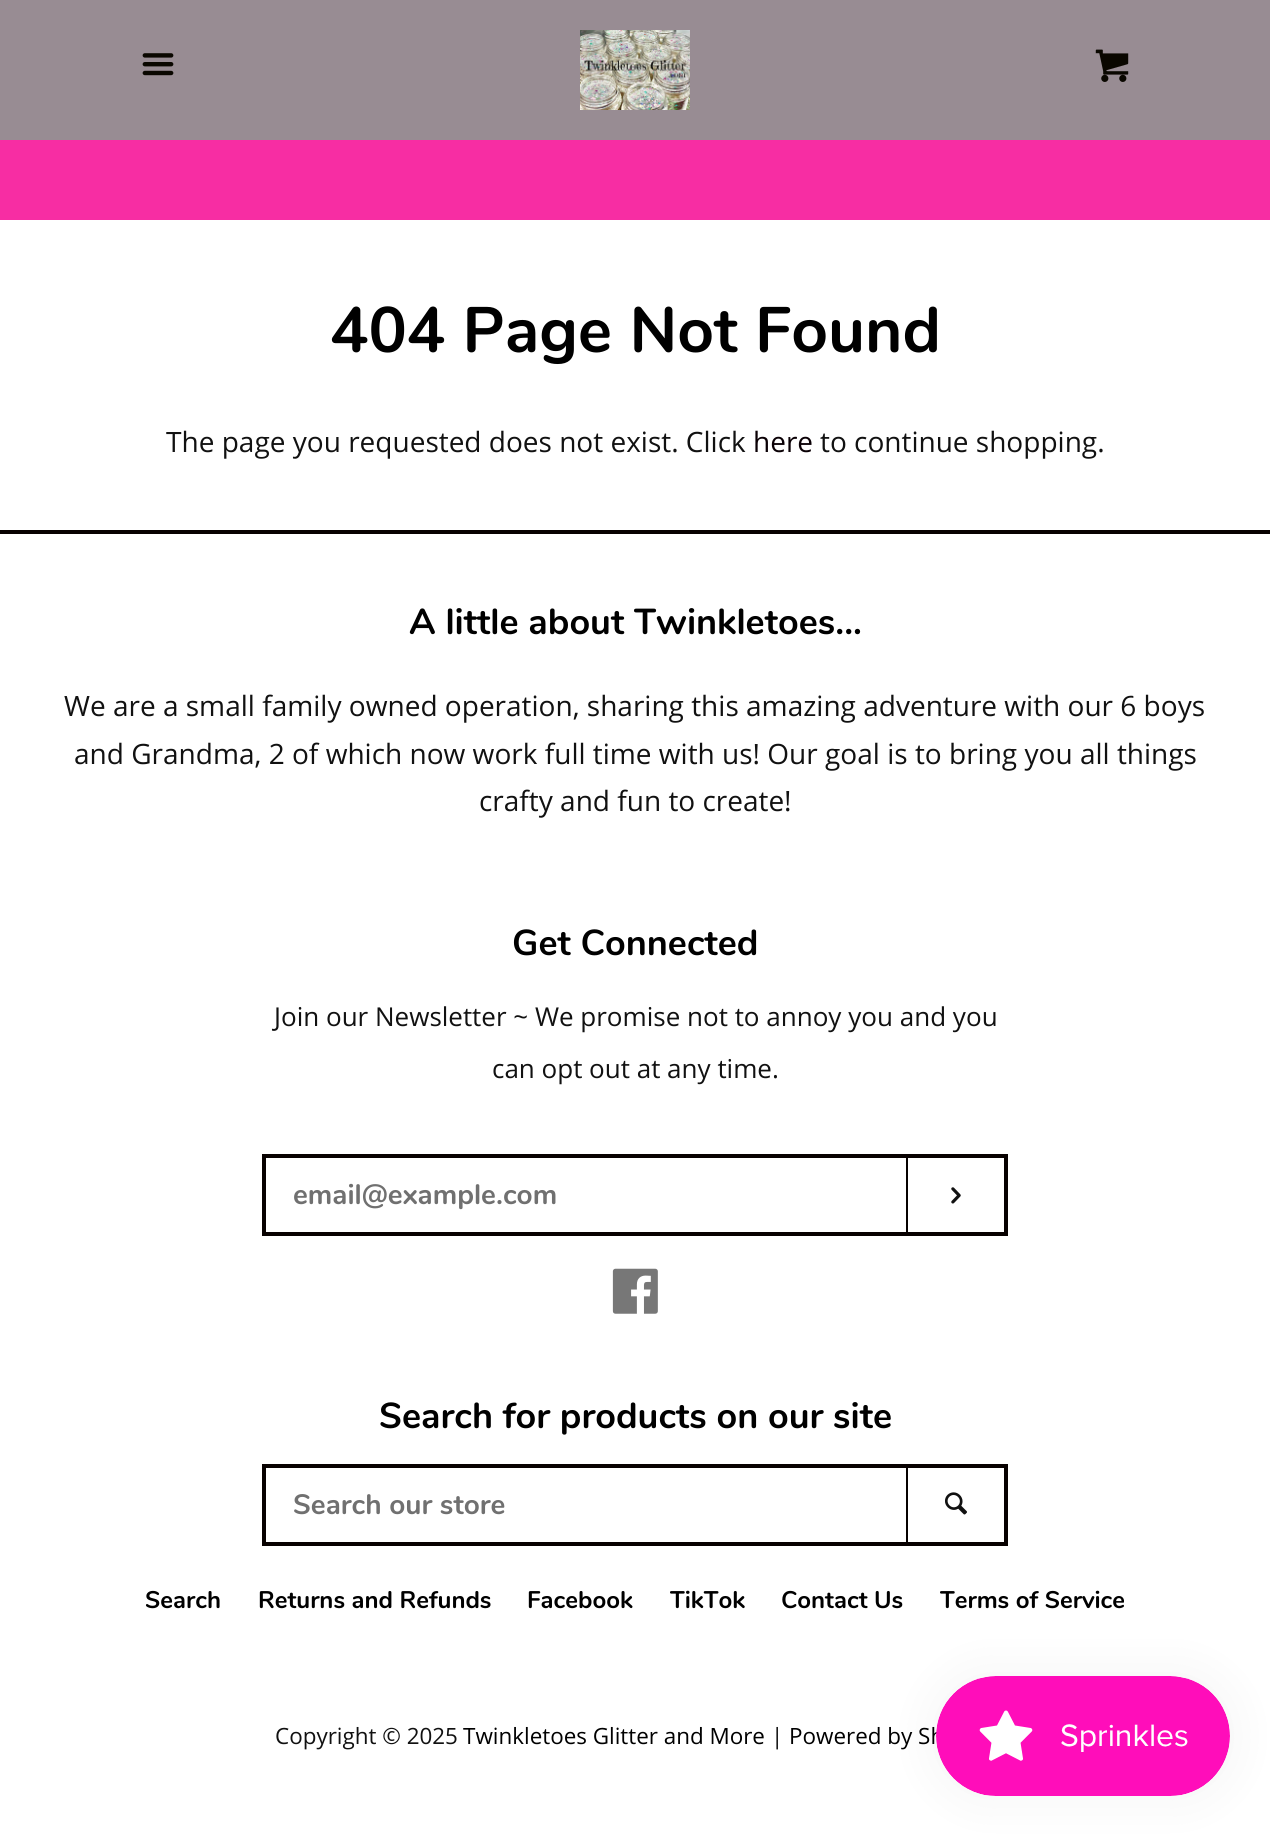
import math
import cairocffi as cairo

surface = cairo.ImageSurface(cairo.FORMAT_RGB24, 1270, 1836)
ctx = cairo.Context(surface)
options = cairo.FontOptions()
options.set_hint_metrics(cairo.HINT_METRICS_OFF)
options.set_hint_style(cairo.HINT_STYLE_NONE)
ctx.set_font_options(options)
ctx.set_miter_limit(4)


def rgb(r, g, b):
    ctx.set_source_rgb(r / 255, g / 255, b / 255)


def face(family, size, italic, bold):
    ctx.select_font_face(family, cairo.FONT_SLANT_ITALIC if italic else cairo.FONT_SLANT_NORMAL, cairo.FONT_WEIGHT_BOLD if bold else cairo.FONT_WEIGHT_NORMAL)
    ctx.set_font_size(size)


def label(x, y, s):
    ctx.move_to(x, y)
    ctx.show_text(s)


def rect(x, y, w, h):
    ctx.rectangle(x, y, w, h)
    ctx.fill()


def rrect(x, y, w, h, r):
    ctx.new_sub_path()
    for i, (u, v) in enumerate([(x + w - r, y + h - r), (x + r, y + h - r), (x + r, y + r), (x + w - r, y + r)]):
        ctx.arc(u, v, r, i * math.pi / 2, (i + 1) * math.pi / 2)
    ctx.close_path()


def soft_shadow(x, y, w, h, r, blur, alpha):
    ctx.push_group_with_content(cairo.CONTENT_ALPHA)
    ctx.set_operator(cairo.OPERATOR_SOURCE)
    for i in range(15, -16, -2):
        e = blur * i / 6
        if min(w, h) + 2 * e > 0:
            ctx.set_source_rgba(0, 0, 0, alpha * math.erfc((i - 1) / 8.5) / 2)
            rrect(x - e, y - e, w + 2 * e, h + 2 * e, max(0, min(r + e + blur * .6, min(w, h) / 2 + e)))
            ctx.fill()
    ctx.mask(ctx.pop_group())


def image(path, x, y, w, h):
    ctx.save()
    ctx.set_source_surface(cairo.ImageSurface.create_from_png(path), x, y)
    ctx.rectangle(x, y, w, h)
    ctx.fill()
    ctx.restore()


rgb(152, 140, 147)
ctx.paint()
image('image0.png', 142, 53, 32, 23)
image('image1.png', 580, 30, 110, 80)
image('image2.png', 1095, 49, 34, 33)
rgb(255, 255, 255)
rect(0, 220, 1270, 1616)
rgb(247, 45, 163)
rect(0, 140, 1270, 80)
face('Nunito', 64, 0, 1)
rgb(0, 0, 0)
label(330, 352, '404 Page Not Found')
face('Open Sans', 28, 0, 0)
rgb(17, 17, 17)
label(166, 452, 'The page you requested does not exist. Click')
rgb(10, 0, 5)
label(753, 452, 'here')
rgb(17, 17, 17)
label(820, 452, 'to continue shopping.')
rgb(7, 1, 0)
rect(0, 530, 1270, 4)
face('Nunito', 36, 0, 1)
rgb(0, 0, 0)
label(409, 634, 'A little about Twinkletoes...')
face('Open Sans', 28, 0, 0)
rgb(17, 17, 17)
label(64, 716, 'We are a small family owned operation, sharing this amazing adventure with our 6 boys')
label(74, 764, 'and Grandma, 2 of which now work full time with us! Our goal is to bring you all things')
label(479, 811, 'crafty and fun to create!')
face('Nunito', 36, 0, 1)
rgb(0, 0, 0)
label(512, 955, 'Get Connected')
face('Open Sans', 26, 0, 0)
rgb(17, 17, 17)
label(274, 1026, 'Join our Newsletter ~ We promise not to annoy you and you')
label(492, 1078, 'can opt out at any time.')
ctx.rectangle(264, 1156, 742, 78)
rgb(7, 1, 0)
ctx.set_line_width(4)
ctx.stroke()
rect(906, 1158, 2, 74)
face('Nunito', 28, 0, 1)
rgb(112, 112, 112)
label(293, 1204, 'email@example.com')
image('image3.png', 951, 1187, 10, 17)
image('image4.png', 612, 1268, 46, 46)
face('Nunito', 36, 0, 1)
rgb(0, 0, 0)
label(379, 1428, 'Search for products on our site')
ctx.rectangle(264, 1466, 742, 78)
rgb(7, 1, 0)
ctx.stroke()
rect(906, 1468, 2, 74)
face('Nunito', 28, 0, 1)
rgb(112, 112, 112)
label(293, 1514, 'Search our store')
image('image5.png', 945, 1492, 22, 23)
face('Nunito', 24, 0, 1)
rgb(0, 0, 0)
label(145, 1608, 'Search')
label(258, 1608, 'Returns and Refunds')
label(527, 1608, 'Facebook')
label(670, 1608, 'TikTok')
label(781, 1608, 'Contact Us')
label(940, 1608, 'Terms of Service')
face('Open Sans', 22.4, 0, 0)
rgb(17, 17, 17)
label(275, 1744, 'Copyright © 2025')
rgb(0, 0, 0)
label(463, 1744, 'Twinkletoes Glitter and More')
rgb(17, 17, 17)
label(771, 1744, '|')
rgb(0, 0, 0)
label(789, 1744, 'Powered by Sh')
rgb(0, 0, 0)
soft_shadow(936, 1676, 294, 120, 60, 25, 0.05)
image('image6.png', 936, 1676, 294, 120)
surface.write_to_png('render.png')
